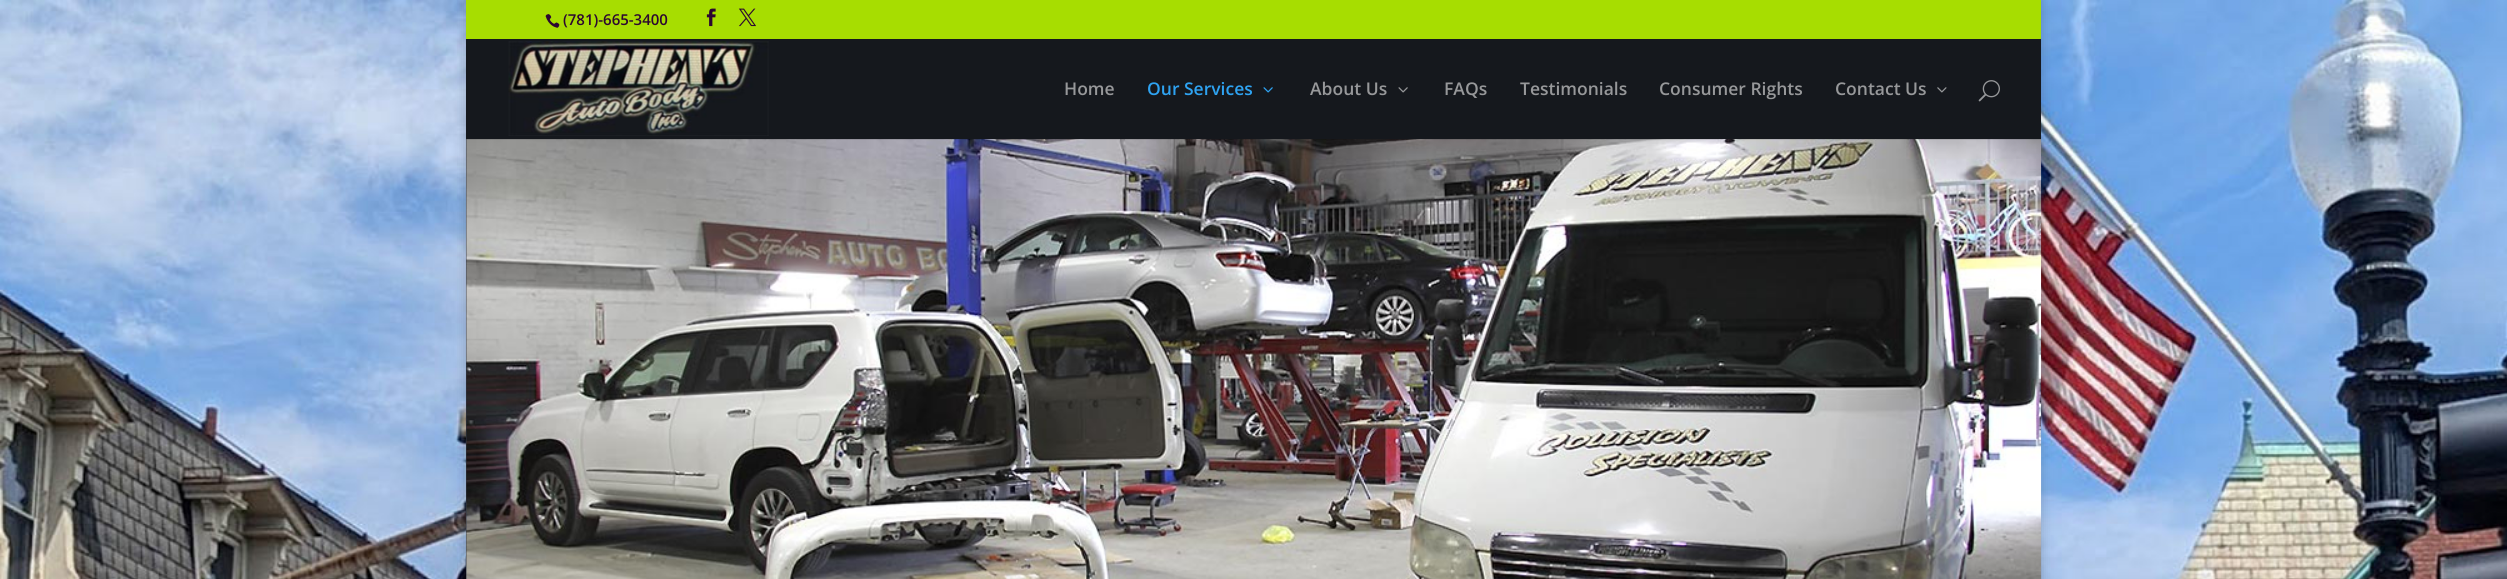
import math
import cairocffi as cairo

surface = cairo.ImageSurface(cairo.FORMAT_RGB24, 2507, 579)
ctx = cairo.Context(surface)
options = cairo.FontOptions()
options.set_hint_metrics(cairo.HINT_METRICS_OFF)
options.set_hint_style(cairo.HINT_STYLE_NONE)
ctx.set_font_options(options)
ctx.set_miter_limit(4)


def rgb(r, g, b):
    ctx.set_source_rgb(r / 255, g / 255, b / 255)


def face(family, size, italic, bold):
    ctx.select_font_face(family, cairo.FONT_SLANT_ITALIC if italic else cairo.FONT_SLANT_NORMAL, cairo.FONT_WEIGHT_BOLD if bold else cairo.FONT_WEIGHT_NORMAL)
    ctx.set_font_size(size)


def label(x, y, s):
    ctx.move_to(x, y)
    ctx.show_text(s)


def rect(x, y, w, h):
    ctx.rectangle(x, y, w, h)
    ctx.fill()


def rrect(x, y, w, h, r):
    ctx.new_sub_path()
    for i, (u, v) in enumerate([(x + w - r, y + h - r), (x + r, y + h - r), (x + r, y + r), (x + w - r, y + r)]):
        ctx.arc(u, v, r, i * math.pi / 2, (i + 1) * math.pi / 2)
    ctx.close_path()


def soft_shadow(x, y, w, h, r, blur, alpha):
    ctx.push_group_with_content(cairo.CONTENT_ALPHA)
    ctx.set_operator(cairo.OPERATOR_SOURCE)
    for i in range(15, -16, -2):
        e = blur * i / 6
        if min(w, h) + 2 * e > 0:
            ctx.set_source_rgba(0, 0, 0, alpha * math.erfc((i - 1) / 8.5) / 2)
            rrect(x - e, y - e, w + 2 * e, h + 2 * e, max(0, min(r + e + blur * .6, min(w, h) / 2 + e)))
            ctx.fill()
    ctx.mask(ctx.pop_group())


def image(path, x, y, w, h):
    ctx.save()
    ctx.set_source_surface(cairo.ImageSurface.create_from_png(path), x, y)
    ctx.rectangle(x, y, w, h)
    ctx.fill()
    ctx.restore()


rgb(255, 255, 255)
ctx.paint()
image('image0.png', 0, 0, 2507, 579)
rgb(0, 0, 0)
soft_shadow(466, 0, 1575, 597, 0, 6, 0.2)
rgb(167, 221, 1)
rect(466, 0, 1575, 39)
image('image1.png', 545, 14, 15, 14)
face('Open Sans SemiBold', 15, 0, 0)
rgb(44, 6, 48)
label(563, 25, '(781)-665-3400')
image('image2.png', 706, 8, 10, 19)
image('image3.png', 738, 8, 18, 19)
rgb(51, 57, 73)
rect(466, 139, 1, 440)
image('image9.png', 466, 139, 1576, 440)
ctx.set_source_rgba(0, 0, 0, 0.1)
ctx.new_path()
ctx.move_to(466, 40)
ctx.line_to(466, 140)
ctx.line_to(2041, 140)
ctx.line_to(2041, 139)
ctx.line_to(466, 139)
ctx.close_path()
ctx.fill()
rgb(21, 24, 29)
rect(466, 39, 1575, 100)
image('image4.png', 508, 41, 261, 95)
face('Open Sans SemiBold', 17.5, 0, 0)
rgb(151, 152, 154)
label(1064, 95, 'Home')
rgb(46, 163, 242)
label(1147, 95, 'Our Services')
image('image5.png', 1263, 87, 10, 6)
rgb(151, 152, 154)
label(1310, 95, 'About Us')
image('image6.png', 1398, 87, 10, 6)
label(1444, 95, 'FAQs')
label(1520, 95, 'Testimonials')
label(1659, 95, 'Consumer Rights')
label(1835, 95, 'Contact Us')
image('image7.png', 1937, 87, 10, 6)
image('image8.png', 1978, 80, 22, 22)
surface.write_to_png('render.png')
